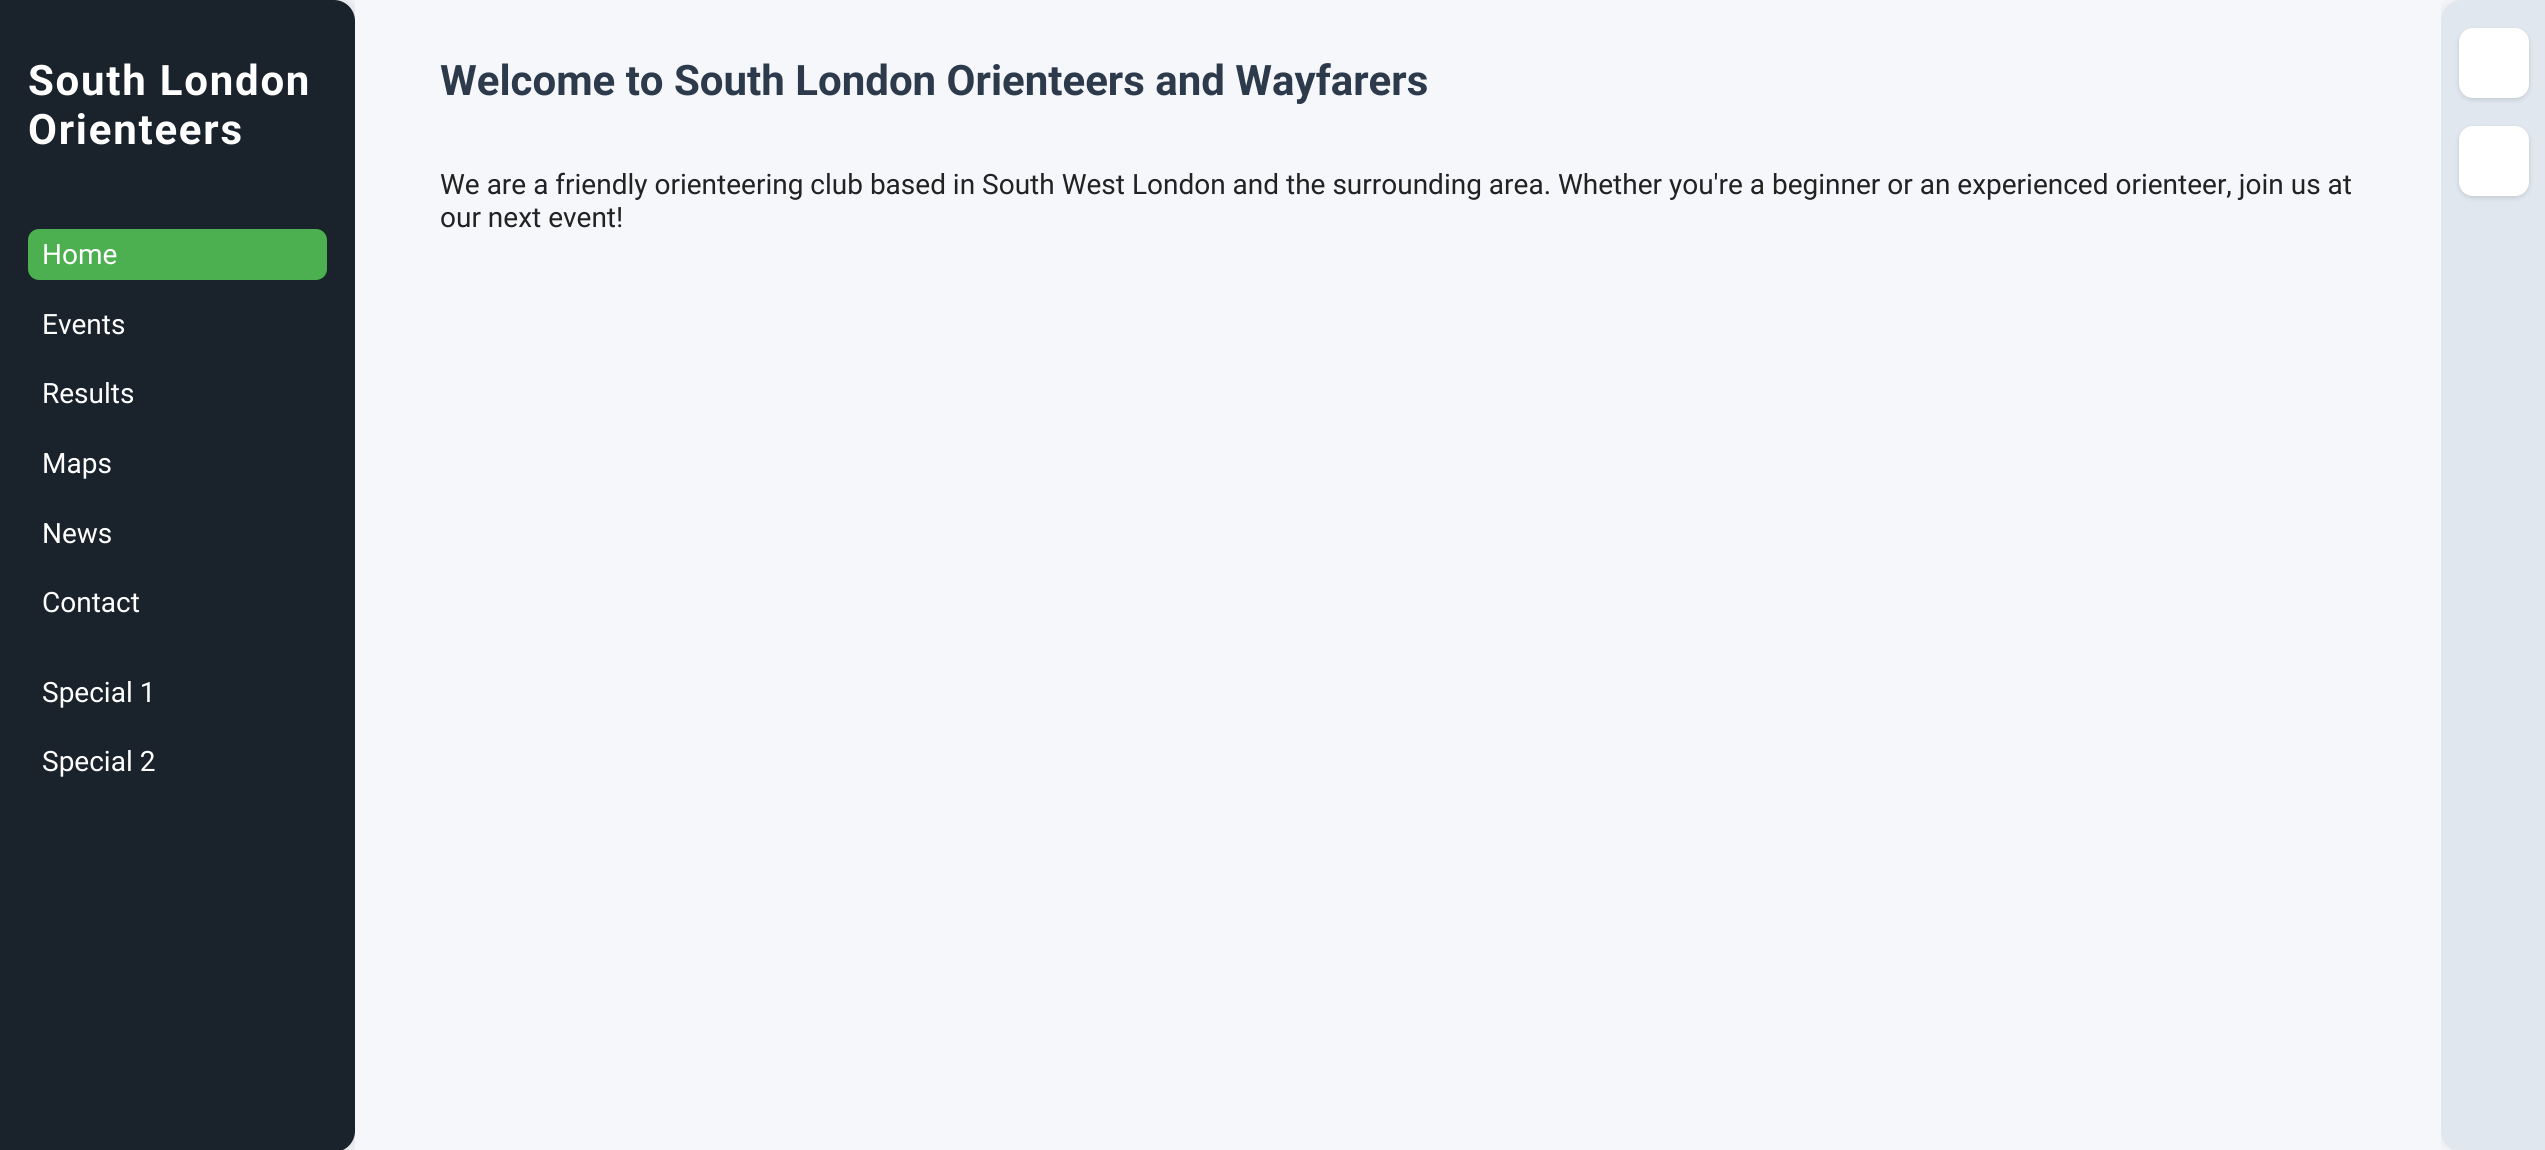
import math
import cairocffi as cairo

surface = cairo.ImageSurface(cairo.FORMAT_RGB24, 2545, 1150)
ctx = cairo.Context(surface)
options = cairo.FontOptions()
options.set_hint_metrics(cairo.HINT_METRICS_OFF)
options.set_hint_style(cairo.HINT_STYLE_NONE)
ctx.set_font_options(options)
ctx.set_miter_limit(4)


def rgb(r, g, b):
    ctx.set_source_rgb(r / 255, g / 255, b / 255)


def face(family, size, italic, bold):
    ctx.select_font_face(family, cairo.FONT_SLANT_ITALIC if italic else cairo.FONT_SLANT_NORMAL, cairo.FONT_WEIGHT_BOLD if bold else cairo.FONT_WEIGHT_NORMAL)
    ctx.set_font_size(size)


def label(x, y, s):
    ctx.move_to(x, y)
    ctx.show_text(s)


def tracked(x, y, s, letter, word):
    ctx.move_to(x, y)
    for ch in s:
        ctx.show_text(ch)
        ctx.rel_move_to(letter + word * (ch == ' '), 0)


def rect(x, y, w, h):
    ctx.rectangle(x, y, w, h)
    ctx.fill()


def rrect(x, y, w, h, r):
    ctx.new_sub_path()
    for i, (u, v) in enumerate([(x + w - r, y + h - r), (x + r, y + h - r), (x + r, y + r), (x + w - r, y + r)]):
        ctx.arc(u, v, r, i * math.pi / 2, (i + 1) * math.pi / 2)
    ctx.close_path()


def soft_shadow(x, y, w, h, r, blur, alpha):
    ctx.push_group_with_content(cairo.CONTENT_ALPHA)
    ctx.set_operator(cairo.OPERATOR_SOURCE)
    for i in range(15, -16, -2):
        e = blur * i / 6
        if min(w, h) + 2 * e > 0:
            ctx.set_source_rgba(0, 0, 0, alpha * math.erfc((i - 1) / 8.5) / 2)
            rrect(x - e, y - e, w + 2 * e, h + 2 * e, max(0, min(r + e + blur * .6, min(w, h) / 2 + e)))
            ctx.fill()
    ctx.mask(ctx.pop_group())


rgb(245, 247, 250)
ctx.paint()
rgb(0, 0, 0)
soft_shadow(4, 0, 355, 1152, 21, 7, 0.13)
rgb(26, 34, 44)
ctx.new_path()
ctx.move_to(0, 0)
ctx.line_to(334, 0)
ctx.curve_to(345.5, 0, 355, 9.5, 355, 21)
ctx.line_to(355, 1131)
ctx.curve_to(355, 1142.5, 345.5, 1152, 334, 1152)
ctx.line_to(0, 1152)
ctx.close_path()
ctx.fill()
face('Roboto', 42, 0, 1)
rgb(255, 255, 255)
tracked(28, 95, 'South London', 1.75, 0)
tracked(28, 144, 'Orienteers', 1.75, 0)
rgb(76, 175, 80)
rrect(28, 229, 299, 51, 11)
ctx.fill()
face('Roboto', 28, 0, 0)
rgb(255, 255, 255)
label(42, 264, 'Home')
label(42, 334, 'Events')
label(42, 403, 'Results')
label(42, 473, 'Maps')
label(42, 543, 'News')
label(42, 612, 'Contact')
label(42, 702, 'Special 1')
label(42, 771, 'Special 2')
rgb(0, 0, 0)
soft_shadow(2438, 0, 105, 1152, 21, 7, 0.07)
rgb(245, 247, 250)
rect(355, 0, 2086, 1150)
face('Roboto', 42, 0, 1)
rgb(45, 58, 75)
label(440, 95, 'Welcome to South London Orienteers and Wayfarers')
face('Roboto', 28, 0, 0)
rgb(34, 34, 34)
label(440, 194, 'We are a friendly orienteering club based in South West London and the surrounding area. Whether you\'re a beginner or an experienced orienteer, join us at')
label(440, 227, 'our next event!')
rgb(224, 231, 239)
ctx.new_path()
ctx.move_to(2462, 0)
ctx.line_to(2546, 0)
ctx.line_to(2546, 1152)
ctx.line_to(2462, 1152)
ctx.curve_to(2450.5, 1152, 2441, 1142.5, 2441, 1131)
ctx.line_to(2441, 21)
ctx.curve_to(2441, 9.5, 2450.5, 0, 2462, 0)
ctx.close_path()
ctx.fill()
rgb(0, 0, 0)
soft_shadow(2459, 30, 70, 70, 14, 2.5, 0.13)
rgb(255, 255, 255)
rrect(2459, 28, 70, 70, 14)
ctx.fill()
rgb(0, 0, 0)
soft_shadow(2459, 128, 70, 70, 14, 2.5, 0.13)
rgb(255, 255, 255)
rrect(2459, 126, 70, 70, 14)
ctx.fill()
surface.write_to_png('render.png')
